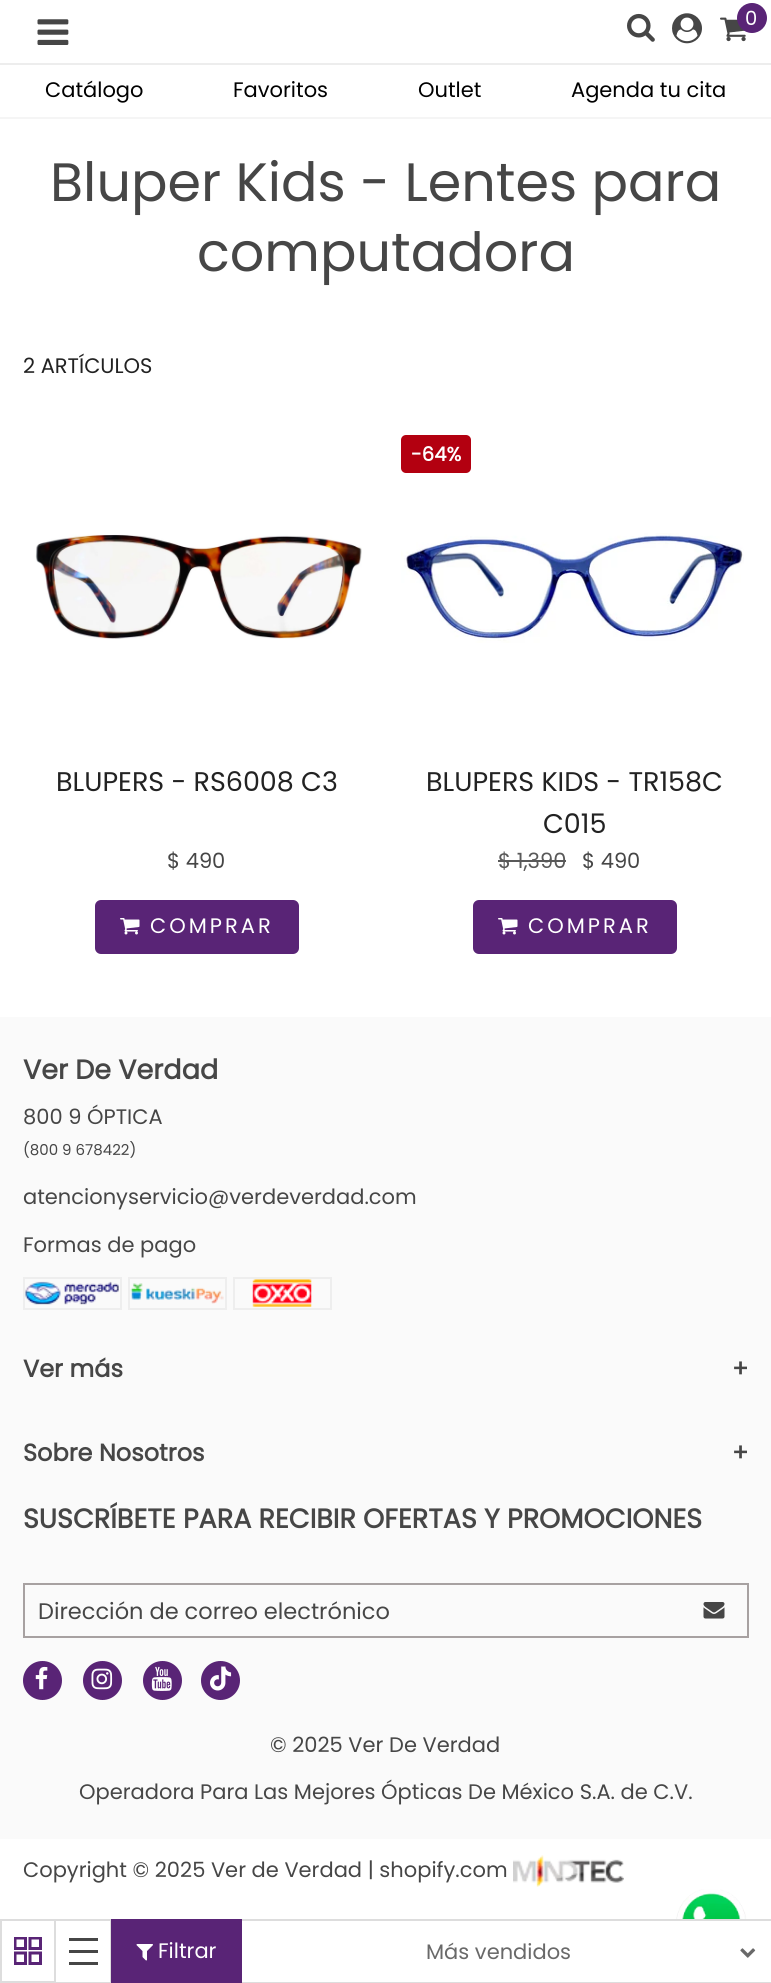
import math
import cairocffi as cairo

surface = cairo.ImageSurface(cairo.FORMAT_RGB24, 771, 1983)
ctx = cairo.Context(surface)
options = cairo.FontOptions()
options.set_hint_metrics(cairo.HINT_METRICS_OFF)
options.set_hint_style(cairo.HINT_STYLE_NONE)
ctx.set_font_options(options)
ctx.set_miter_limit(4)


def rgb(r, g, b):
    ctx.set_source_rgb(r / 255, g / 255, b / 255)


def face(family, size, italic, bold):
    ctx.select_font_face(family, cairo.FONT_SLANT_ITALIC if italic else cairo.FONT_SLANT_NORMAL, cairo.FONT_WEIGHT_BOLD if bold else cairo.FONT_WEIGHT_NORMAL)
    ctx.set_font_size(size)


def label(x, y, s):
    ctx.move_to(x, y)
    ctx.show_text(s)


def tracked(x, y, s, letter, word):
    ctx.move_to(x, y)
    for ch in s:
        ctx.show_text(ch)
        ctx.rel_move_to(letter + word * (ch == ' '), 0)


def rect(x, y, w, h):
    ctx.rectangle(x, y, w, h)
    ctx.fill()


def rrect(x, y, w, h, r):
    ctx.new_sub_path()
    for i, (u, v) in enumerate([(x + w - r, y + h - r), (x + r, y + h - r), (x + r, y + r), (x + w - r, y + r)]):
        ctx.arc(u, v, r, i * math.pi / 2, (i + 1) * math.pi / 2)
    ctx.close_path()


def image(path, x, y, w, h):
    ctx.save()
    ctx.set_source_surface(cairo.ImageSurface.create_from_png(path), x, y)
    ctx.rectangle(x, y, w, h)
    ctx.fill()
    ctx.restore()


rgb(255, 255, 255)
ctx.paint()
rgb(245, 245, 245)
rect(0, 117, 771, 2)
image('image0.png', 627, 13, 28, 29)
image('image1.png', 672, 13, 30, 31)
image('image2.png', 720, 17, 26, 25)
rgb(89, 36, 118)
ctx.arc(752, 18, 15, 0, 2 * math.pi)
ctx.fill()
face('Poppins', 19.5, 0, 0)
rgb(255, 255, 255)
label(745, 25, '0')
image('image3.png', 37, 19, 32, 26)
rgb(237, 237, 237)
rect(0, 63, 771, 2)
face('Poppins', 21, 0, 0)
rgb(0, 0, 0)
label(45, 97, 'Catálogo')
label(233, 97, 'Favoritos')
label(418, 97, 'Outlet')
label(571, 97, 'Agenda tu cita')
face('Poppins', 54, 0, 0)
rgb(70, 70, 70)
label(50, 201, 'Bluper Kids - Lentes para')
label(197, 271, 'computadora')
face('Poppins', 21, 0, 0)
rgb(34, 34, 34)
label(23, 373, '2 ARTÍCULOS')
ctx.rectangle(1, 1920, 54, 62)
rgb(221, 221, 221)
ctx.stroke()
image('image4.png', 14, 1937, 28, 28)
rect(56, 1919, 55, 2)
rect(110, 1919, 1, 64)
rect(56, 1982, 55, 1)
rgb(70, 70, 70)
rect(69, 1938, 29, 3)
rect(69, 1950, 29, 3)
rect(69, 1962, 29, 3)
rgb(89, 36, 118)
rect(111, 1919, 131, 64)
image('image5.png', 136, 1944, 17, 17)
rgb(255, 255, 255)
label(158, 1958, 'Filtrar')
rgb(221, 221, 221)
rect(242, 1919, 529, 2)
rect(242, 1982, 529, 1)
rgb(105, 105, 105)
label(426, 1959, 'Más vendidos')
image('image6.png', 740, 1948, 16, 10)
image('image7.png', 35, 534, 327, 105)
face('Poppins', 27, 0, 0)
rgb(34, 34, 34)
label(56, 791, 'BLUPERS - RS6008 C3')
face('Poppins', 21, 0, 0)
rgb(70, 70, 70)
label(167, 868, '$ 490')
rgb(89, 36, 118)
rrect(95, 900, 204, 54, 6)
ctx.fill()
image('image8.png', 120, 918, 20, 17)
rgb(255, 255, 255)
tracked(150, 933, 'COMPRAR', 3, 0)
rgb(179, 0, 16)
rrect(401, 435, 70, 38, 5)
ctx.fill()
face('Poppins', 19.5, 0, 1)
rgb(255, 255, 255)
label(411, 461, '-64%')
image('image9.png', 401, 533, 343, 110)
face('Poppins', 27, 0, 0)
rgb(34, 34, 34)
label(426, 791, 'BLUPERS KIDS - TR158C')
label(543, 833, 'C015')
face('Poppins', 21, 0, 0)
rgb(89, 89, 89)
label(498, 868, '$ 1,390')
rect(498, 860, 68, 2)
rgb(70, 70, 70)
label(582, 868, '$ 490')
rgb(89, 36, 118)
rrect(473, 900, 204, 54, 6)
ctx.fill()
image('image8.png', 498, 918, 20, 17)
rgb(255, 255, 255)
tracked(528, 933, 'COMPRAR', 3, 0)
rgb(250, 250, 250)
rect(0, 1017, 771, 822)
face('Poppins', 27, 0, 1)
rgb(70, 70, 70)
label(23, 1079, 'Ver De Verdad')
face('Poppins', 21, 0, 0)
label(23, 1124, '800 9 ÓPTICA')
face('Poppins', 15, 0, 0)
label(23, 1155, '(800 9 678422)')
face('Poppins', 21, 0, 0)
label(23, 1204, 'atencionyservicio@verdeverdad.com')
label(23, 1252, 'Formas de pago')
ctx.rectangle(24, 1278, 97, 31)
rgb(238, 238, 238)
ctx.stroke()
image('image10.png', 25, 1281, 94, 24)
ctx.rectangle(129, 1278, 97, 31)
ctx.stroke()
image('image11.png', 130, 1283, 94, 21)
ctx.rectangle(234, 1278, 97, 31)
ctx.stroke()
image('image12.png', 252, 1279, 60, 28)
face('Poppins', 24, 0, 1)
rgb(70, 70, 70)
label(23, 1377, 'Ver más')
label(732, 1377, '+')
label(23, 1461, 'Sobre Nosotros')
label(732, 1461, '+')
face('Poppins', 27, 0, 1)
label(23, 1528, 'SUSCRÍBETE PARA RECIBIR OFERTAS Y PROMOCIONES')
ctx.rectangle(24, 1584, 724, 53)
rgb(167, 161, 161)
ctx.stroke()
image('image13.png', 703, 1602, 22, 17)
face('Poppins', 22.5, 0, 0)
rgb(70, 70, 70)
label(38, 1619, 'Dirección de correo electrónico')
rgb(89, 36, 118)
ctx.new_path()
ctx.arc(42.5, 1680.5, 19.5, 0, 2 * math.pi)
ctx.fill()
image('image14.png', 35, 1666, 13, 24)
ctx.arc(102.5, 1680.5, 19.5, 0, 2 * math.pi)
ctx.fill()
image('image15.png', 91, 1668, 22, 22)
ctx.arc(162.5, 1680.5, 19.5, 0, 2 * math.pi)
ctx.fill()
image('image16.png', 151, 1666, 21, 25)
ctx.arc(220.5, 1680.5, 19.5, 0, 2 * math.pi)
ctx.fill()
image('image17.png', 210, 1666, 22, 25)
face('Poppins', 21, 0, 0)
rgb(70, 70, 70)
label(270, 1752, '© 2025 Ver De Verdad')
label(79, 1799, 'Operadora Para Las Mejores Ópticas De México S.A. de C.V.')
image('image18.png', 676, 1889, 71, 30)
label(23, 1877, 'Copyright © 2025 Ver de Verdad | shopify.com')
image('image19.png', 513, 1855, 111, 32)
surface.write_to_png('render.png')
